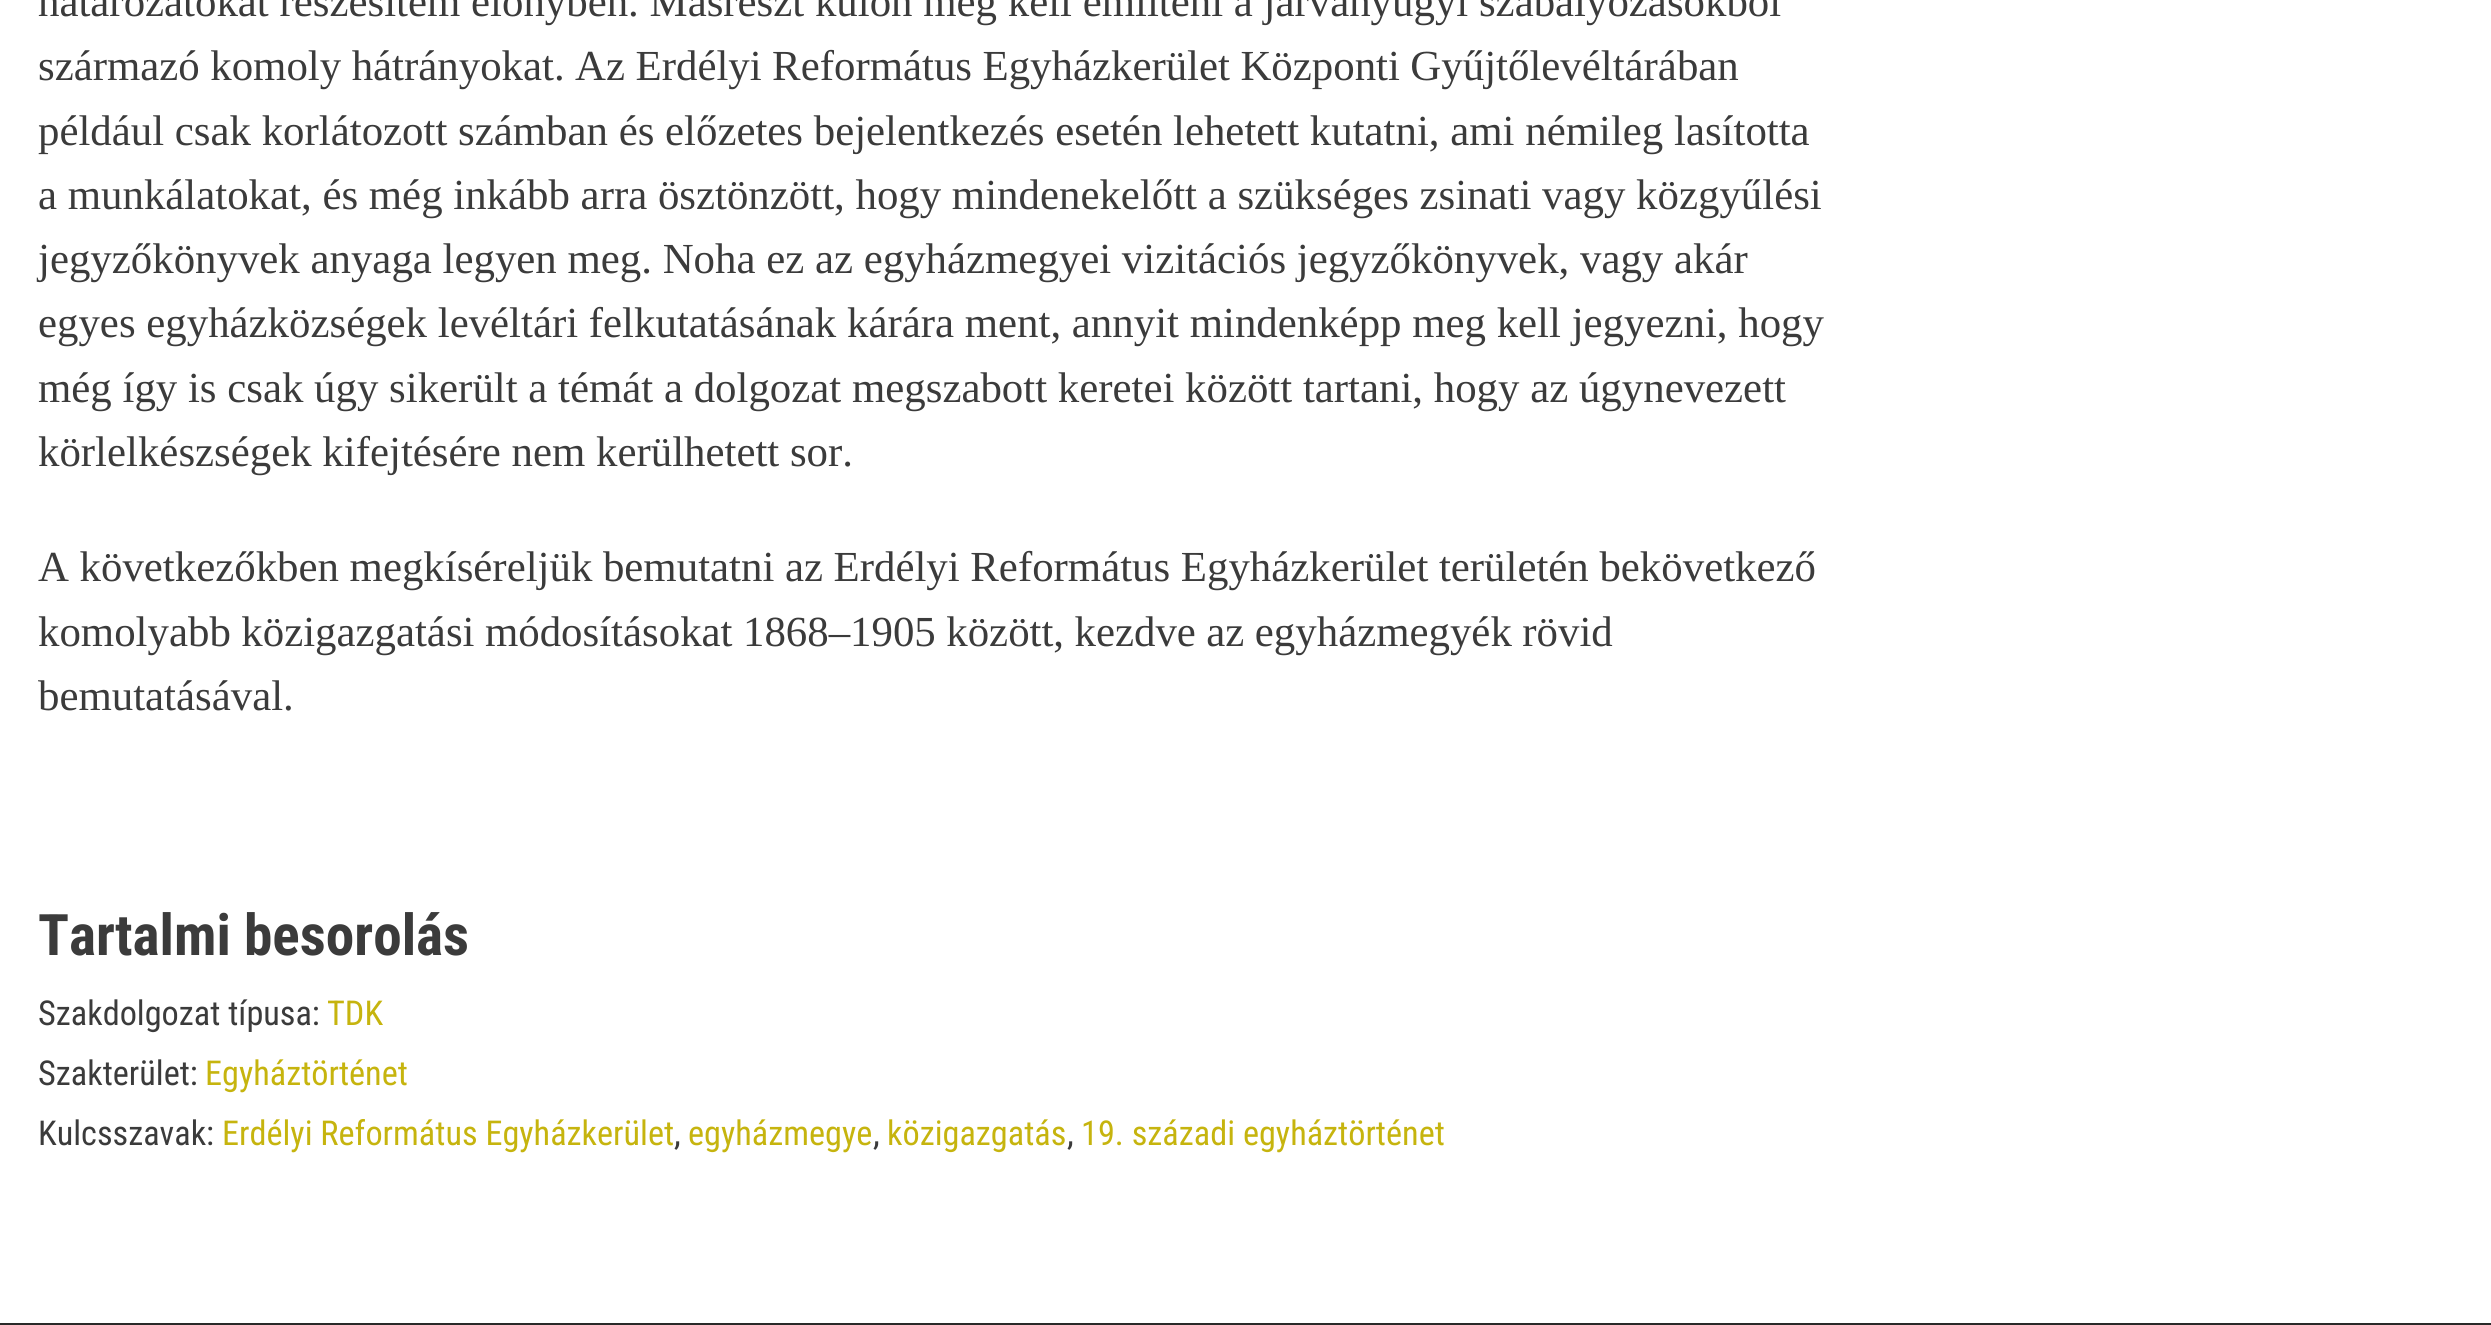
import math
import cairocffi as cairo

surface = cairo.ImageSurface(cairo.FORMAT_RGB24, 2491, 1325)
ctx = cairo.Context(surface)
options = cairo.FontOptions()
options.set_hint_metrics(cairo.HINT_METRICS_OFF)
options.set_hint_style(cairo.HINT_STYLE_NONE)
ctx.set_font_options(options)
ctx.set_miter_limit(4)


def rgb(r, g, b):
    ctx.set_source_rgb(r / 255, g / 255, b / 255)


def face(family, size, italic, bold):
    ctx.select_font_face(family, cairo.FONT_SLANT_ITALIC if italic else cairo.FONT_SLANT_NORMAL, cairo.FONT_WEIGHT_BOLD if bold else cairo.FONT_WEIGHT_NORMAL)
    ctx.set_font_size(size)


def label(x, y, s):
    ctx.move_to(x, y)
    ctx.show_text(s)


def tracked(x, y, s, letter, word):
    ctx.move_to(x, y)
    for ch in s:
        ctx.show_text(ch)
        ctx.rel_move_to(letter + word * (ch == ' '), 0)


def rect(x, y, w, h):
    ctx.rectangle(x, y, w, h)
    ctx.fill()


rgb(255, 255, 255)
ctx.paint()
face('Liberation Serif', 42.85, 0, 0)
rgb(59, 59, 59)
label(38, 16, 'határozatokat részesítem előnyben. Másrészt külön meg kell említeni a járványügyi szabályozásokból')
tracked(38, 80, 'származó komoly hátrányokat. Az Erdélyi Református Egyházkerület Központi Gyűjtőlevéltárában', 0, -0.25)
label(38, 145, 'például csak korlátozott számban és előzetes bejelentkezés esetén lehetett kutatni, ami némileg lasította')
label(38, 209, 'a munkálatokat, és még inkább arra ösztönzött, hogy mindenekelőtt a szükséges zsinati vagy közgyűlési')
label(38, 273, 'jegyzőkönyvek anyaga legyen meg. Noha ez az egyházmegyei vizitációs jegyzőkönyvek, vagy akár')
label(38, 337, 'egyes egyházközségek levéltári felkutatásának kárára ment, annyit mindenképp meg kell jegyezni, hogy')
label(38, 402, 'még így is csak úgy sikerült a témát a dolgozat megszabott keretei között tartani, hogy az úgynevezett')
label(38, 466, 'körlelkészségek kifejtésére nem kerülhetett sor.')
tracked(38, 581, 'A következőkben megkíséreljük bemutatni az Erdélyi Református Egyházkerület területén bekövetkező', 0, -0.1)
tracked(38, 646, 'komolyabb közigazgatási módosításokat 1868–1905 között, kezdve az egyházmegyék rövid', 0, -0.25)
label(38, 710, 'bemutatásával.')
face('Roboto Condensed', 57.25, 0, 1)
label(38, 955, 'Tartalmi besorolás')
face('Roboto Condensed', 34.25, 0, 0)
label(38, 1025, 'Szakdolgozat típusa:')
rgb(198, 180, 14)
label(327, 1025, 'TDK')
rgb(59, 59, 59)
label(38, 1085, 'Szakterület:')
rgb(198, 180, 14)
label(205, 1085, 'Egyháztörténet')
rgb(59, 59, 59)
label(38, 1145, 'Kulcsszavak:')
rgb(198, 180, 14)
label(222, 1145, 'Erdélyi Református Egyházkerület')
rgb(59, 59, 59)
label(674, 1145, ',')
rgb(198, 180, 14)
label(688, 1145, 'egyházmegye')
rgb(59, 59, 59)
label(873, 1145, ',')
rgb(198, 180, 14)
label(887, 1145, 'közigazgatás')
rgb(59, 59, 59)
label(1067, 1145, ',')
rgb(198, 180, 14)
label(1081, 1145, '19. századi egyháztörténet')
rgb(41, 41, 41)
rect(0, 1323, 2491, 2)
surface.write_to_png('render.png')
